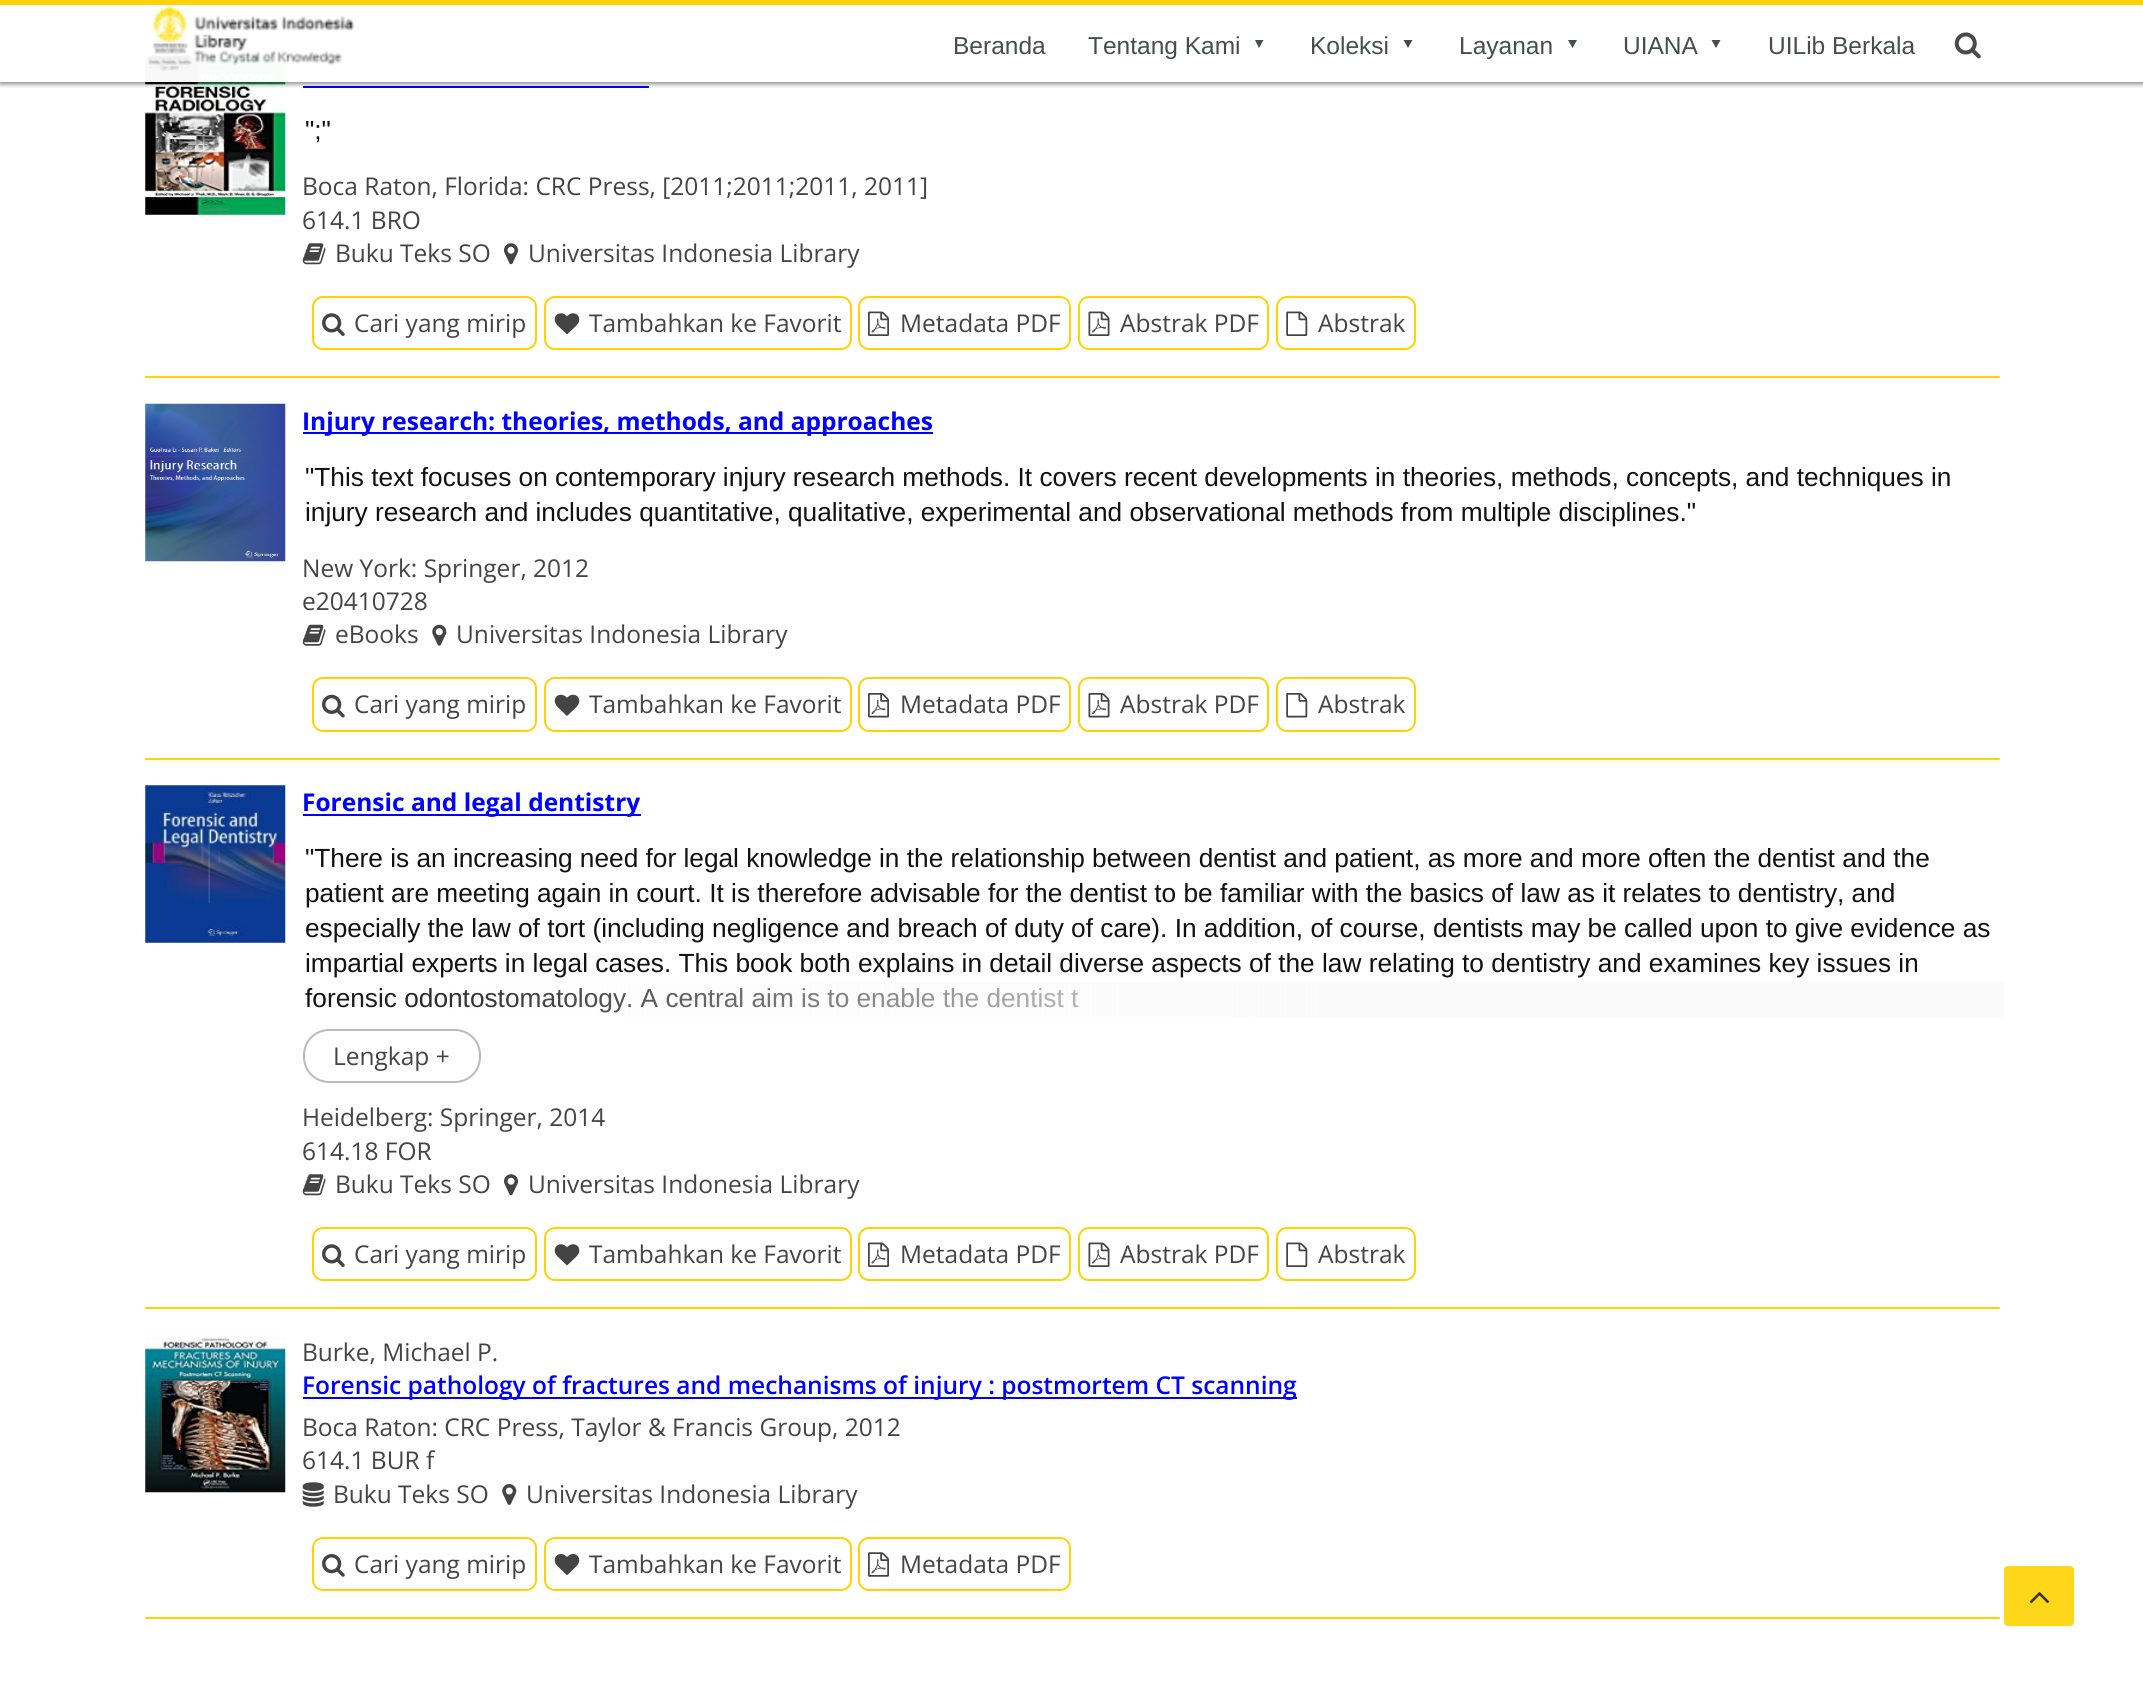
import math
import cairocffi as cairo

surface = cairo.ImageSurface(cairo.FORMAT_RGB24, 2143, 1695)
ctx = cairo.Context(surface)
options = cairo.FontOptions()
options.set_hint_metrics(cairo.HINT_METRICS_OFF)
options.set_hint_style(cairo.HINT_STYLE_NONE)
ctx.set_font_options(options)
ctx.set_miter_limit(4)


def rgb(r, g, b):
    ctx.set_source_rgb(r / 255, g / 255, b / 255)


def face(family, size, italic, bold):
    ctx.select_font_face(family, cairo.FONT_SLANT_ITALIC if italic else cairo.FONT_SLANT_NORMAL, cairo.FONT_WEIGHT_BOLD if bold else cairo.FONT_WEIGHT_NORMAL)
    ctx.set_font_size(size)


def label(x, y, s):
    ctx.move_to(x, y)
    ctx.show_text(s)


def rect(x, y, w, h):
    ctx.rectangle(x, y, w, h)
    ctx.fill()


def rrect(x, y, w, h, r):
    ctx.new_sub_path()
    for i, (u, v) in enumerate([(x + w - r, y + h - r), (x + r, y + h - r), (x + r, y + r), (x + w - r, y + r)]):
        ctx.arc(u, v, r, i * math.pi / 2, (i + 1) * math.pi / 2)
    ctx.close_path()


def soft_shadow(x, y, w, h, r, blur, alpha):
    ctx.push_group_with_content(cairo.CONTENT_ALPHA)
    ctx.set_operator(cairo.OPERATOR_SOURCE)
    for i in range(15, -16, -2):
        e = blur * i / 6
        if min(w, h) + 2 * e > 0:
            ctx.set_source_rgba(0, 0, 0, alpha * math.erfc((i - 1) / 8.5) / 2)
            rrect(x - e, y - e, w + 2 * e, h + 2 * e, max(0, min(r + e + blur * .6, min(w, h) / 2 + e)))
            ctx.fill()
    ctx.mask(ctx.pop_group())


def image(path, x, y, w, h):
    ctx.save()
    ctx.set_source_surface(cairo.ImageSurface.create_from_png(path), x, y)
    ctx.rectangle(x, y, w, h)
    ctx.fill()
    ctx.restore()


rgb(255, 255, 255)
ctx.paint()
image('image2.png', 145, 57, 141, 158)
rgb(0, 0, 255)
rect(303, 86, 346, 2)
ctx.save()
ctx.rectangle(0, 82, 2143, 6)
ctx.clip()
rgb(0, 0, 0)
soft_shadow(0, 2, 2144, 82, 0, 2.5, 0.48)
ctx.restore()
ctx.set_source_rgba(1, 1, 1, 0.97)
rect(145, 57, 141, 25)
rgb(255, 211, 8)
rect(0, 0, 2143, 5)
image('image0.png', 148, 6, 207, 65)
face('Liberation Sans', 24.5, 0, 0)
rgb(71, 77, 77)
label(953, 54, 'Beranda')
label(1088, 54, 'Tentang Kami')
ctx.new_path()
ctx.move_to(1263.5, 40)
ctx.line_to(1259, 48)
ctx.line_to(1255, 40)
ctx.close_path()
ctx.fill()
label(1310, 54, 'Koleksi')
ctx.new_path()
ctx.move_to(1412.5, 40)
ctx.line_to(1408, 48)
ctx.line_to(1403.5, 40)
ctx.close_path()
ctx.fill()
label(1459, 54, 'Layanan')
ctx.new_path()
ctx.move_to(1577, 40)
ctx.line_to(1572.5, 48)
ctx.line_to(1568, 40)
ctx.close_path()
ctx.fill()
label(1623, 54, 'UIANA')
ctx.new_path()
ctx.move_to(1720.5, 40)
ctx.line_to(1716, 48)
ctx.line_to(1711.5, 40)
ctx.close_path()
ctx.fill()
label(1768, 54, 'UILib Berkala')
image('image1.png', 1954, 32, 27, 27)
face('Liberation Sans', 26.25, 0, 0)
rgb(17, 17, 17)
label(305, 139, '";"')
face('Open Sans', 24.5, 0, 0)
rgb(68, 68, 68)
label(302, 195, 'Boca Raton, Florida: CRC Press, [2011;2011;2011, 2011]')
label(302, 229, '614.1 BRO')
image('image3.png', 302, 243, 24, 22)
label(335, 262, 'Buku Teks SO')
image('image4.png', 504, 243, 14, 22)
label(528, 262, 'Universitas Indonesia Library')
rrect(313, 297, 223, 52, 10)
rgb(255, 210, 0)
ctx.stroke()
image('image5.png', 322, 313, 23, 23)
rgb(68, 68, 68)
label(354, 332, 'Cari yang mirip')
rrect(545, 297, 306, 52, 10)
rgb(255, 210, 0)
ctx.stroke()
image('image6.png', 554, 313, 26, 22)
rgb(68, 68, 68)
label(589, 332, 'Tambahkan ke Favorit')
rrect(859, 297, 211, 52, 10)
rgb(255, 210, 0)
ctx.stroke()
image('image7.png', 868, 311, 21, 25)
rgb(68, 68, 68)
label(900, 332, 'Metadata PDF')
rrect(1079, 297, 189, 52, 10)
rgb(255, 210, 0)
ctx.stroke()
image('image8.png', 1088, 311, 22, 25)
rgb(68, 68, 68)
label(1120, 332, 'Abstrak PDF')
rrect(1277, 297, 138, 52, 10)
rgb(255, 210, 0)
ctx.stroke()
image('image9.png', 1286, 311, 22, 25)
rgb(68, 68, 68)
label(1318, 332, 'Abstrak')
rgb(255, 210, 0)
rrect(145, 376, 1855, 2, 1)
ctx.fill()
image('image10.png', 145, 403, 141, 159)
rgb(0, 0, 255)
rect(303, 432, 630, 2)
face('Open Sans', 24.5, 0, 1)
label(302, 430, 'Injury research: theories, methods, and approaches')
face('Liberation Sans', 26.25, 0, 0)
rgb(17, 17, 17)
label(305, 486, '"This text focuses on contemporary injury research methods. It covers recent developments in theories, methods, concepts, and techniques in')
label(305, 521, 'injury research and includes quantitative, qualitative, experimental and observational methods from multiple disciplines."')
face('Open Sans', 24.5, 0, 0)
rgb(68, 68, 68)
label(302, 577, 'New York: Springer, 2012')
label(302, 610, 'e20410728')
image('image11.png', 302, 624, 24, 22)
label(335, 643, 'eBooks')
image('image12.png', 432, 624, 15, 22)
label(456, 643, 'Universitas Indonesia Library')
rrect(313, 678, 223, 53, 10)
rgb(255, 210, 0)
ctx.stroke()
image('image13.png', 322, 694, 23, 24)
rgb(68, 68, 68)
label(354, 713, 'Cari yang mirip')
rrect(545, 678, 306, 53, 10)
rgb(255, 210, 0)
ctx.stroke()
image('image14.png', 554, 694, 26, 22)
rgb(68, 68, 68)
label(589, 713, 'Tambahkan ke Favorit')
rrect(859, 678, 211, 53, 10)
rgb(255, 210, 0)
ctx.stroke()
image('image15.png', 868, 693, 21, 25)
rgb(68, 68, 68)
label(900, 713, 'Metadata PDF')
rrect(1079, 678, 189, 53, 10)
rgb(255, 210, 0)
ctx.stroke()
image('image16.png', 1088, 693, 22, 25)
rgb(68, 68, 68)
label(1120, 713, 'Abstrak PDF')
rrect(1277, 678, 138, 53, 10)
rgb(255, 210, 0)
ctx.stroke()
image('image17.png', 1286, 693, 22, 25)
rgb(68, 68, 68)
label(1318, 713, 'Abstrak')
rgb(255, 210, 0)
rrect(145, 758, 1855, 2, 1)
ctx.fill()
image('image18.png', 145, 785, 141, 158)
rgb(0, 0, 255)
rect(303, 814, 338, 2)
face('Open Sans', 24.5, 0, 1)
label(302, 811, 'Forensic and legal dentistry')
face('Liberation Sans', 26.25, 0, 0)
rgb(17, 17, 17)
label(305, 867, '"There is an increasing need for legal knowledge in the relationship between dentist and patient, as more and more often the dentist and the')
label(305, 902, 'patient are meeting again in court. It is therefore advisable for the dentist to be familiar with the basics of law as it relates to dentistry, and')
label(305, 937, 'especially the law of tort (including negligence and breach of duty of care). In addition, of course, dentists may be called upon to give evidence as')
label(305, 972, 'impartial experts in legal cases. This book both explains in detail diverse aspects of the law relating to dentistry and examines key issues in')
label(305, 1007, 'forensic odontostomatology. A central aim is to enable the dentist t')
gradient = cairo.LinearGradient(306, 999, 2004, 999)
gradient.add_color_stop_rgba(0, 0.98, 0.98, 0.98, 0)
gradient.add_color_stop_rgba(0.65, 0.98, 0.98, 0.98, 1)
ctx.set_source(gradient)
rect(330, 982, 1674, 35)
rrect(304, 1030, 176, 52, 25)
rgb(187, 187, 187)
ctx.stroke()
face('Open Sans', 24.5, 0, 0)
rgb(68, 68, 68)
label(333, 1065, 'Lengkap +')
label(302, 1126, 'Heidelberg: Springer, 2014')
label(302, 1160, '614.18 FOR')
image('image3.png', 302, 1174, 24, 22)
label(335, 1193, 'Buku Teks SO')
image('image4.png', 504, 1174, 14, 22)
label(528, 1193, 'Universitas Indonesia Library')
rrect(313, 1228, 223, 52, 10)
rgb(255, 210, 0)
ctx.stroke()
image('image5.png', 322, 1244, 23, 23)
rgb(68, 68, 68)
label(354, 1263, 'Cari yang mirip')
rrect(545, 1228, 306, 52, 10)
rgb(255, 210, 0)
ctx.stroke()
image('image6.png', 554, 1244, 26, 22)
rgb(68, 68, 68)
label(589, 1263, 'Tambahkan ke Favorit')
rrect(859, 1228, 211, 52, 10)
rgb(255, 210, 0)
ctx.stroke()
image('image7.png', 868, 1242, 21, 25)
rgb(68, 68, 68)
label(900, 1263, 'Metadata PDF')
rrect(1079, 1228, 189, 52, 10)
rgb(255, 210, 0)
ctx.stroke()
image('image8.png', 1088, 1242, 22, 25)
rgb(68, 68, 68)
label(1120, 1263, 'Abstrak PDF')
rrect(1277, 1228, 138, 52, 10)
rgb(255, 210, 0)
ctx.stroke()
image('image9.png', 1286, 1242, 22, 25)
rgb(68, 68, 68)
label(1318, 1263, 'Abstrak')
rgb(255, 210, 0)
rrect(145, 1307, 1855, 2, 1)
ctx.fill()
image('image19.png', 145, 1335, 141, 158)
rgb(68, 68, 68)
label(302, 1361, 'Burke, Michael P.')
rgb(0, 0, 255)
rect(303, 1397, 994, 2)
face('Open Sans SemiBold', 24.5, 0, 0)
label(302, 1394, 'Forensic pathology of fractures and mechanisms of injury : postmortem CT scanning')
face('Open Sans', 24.5, 0, 0)
rgb(68, 68, 68)
label(302, 1436, 'Boca Raton: CRC Press, Taylor & Francis Group, 2012')
label(302, 1469, '614.1 BUR f')
image('image20.png', 302, 1482, 22, 25)
label(333, 1503, 'Buku Teks SO')
image('image21.png', 502, 1484, 15, 21)
label(526, 1503, 'Universitas Indonesia Library')
rrect(313, 1538, 223, 52, 10)
rgb(255, 210, 0)
ctx.stroke()
image('image22.png', 322, 1554, 23, 23)
rgb(68, 68, 68)
label(354, 1573, 'Cari yang mirip')
rrect(545, 1538, 306, 52, 10)
rgb(255, 210, 0)
ctx.stroke()
image('image23.png', 554, 1554, 26, 21)
rgb(68, 68, 68)
label(589, 1573, 'Tambahkan ke Favorit')
rrect(859, 1538, 211, 52, 10)
rgb(255, 210, 0)
ctx.stroke()
image('image24.png', 868, 1552, 21, 25)
rgb(68, 68, 68)
label(900, 1573, 'Metadata PDF')
rgb(255, 210, 0)
rrect(145, 1617, 1855, 2, 1)
ctx.fill()
rgb(255, 215, 26)
rrect(2004, 1566, 70, 60, 4)
ctx.fill()
image('image25.png', 2029, 1591, 21, 13)
surface.write_to_png('render.png')
